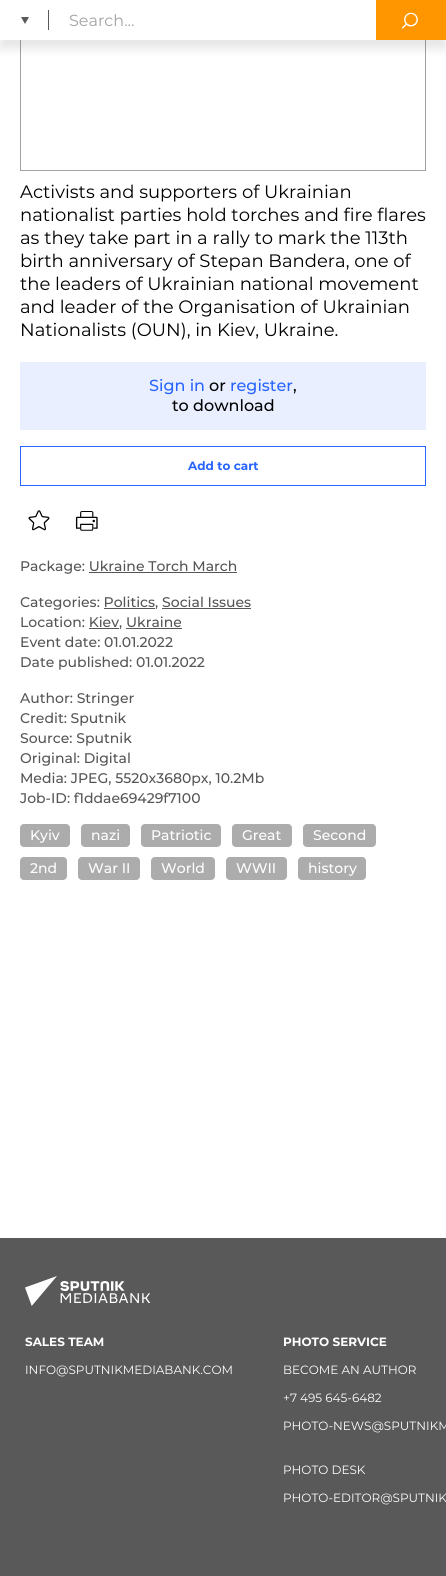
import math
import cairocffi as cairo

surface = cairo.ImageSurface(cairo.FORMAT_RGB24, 446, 1576)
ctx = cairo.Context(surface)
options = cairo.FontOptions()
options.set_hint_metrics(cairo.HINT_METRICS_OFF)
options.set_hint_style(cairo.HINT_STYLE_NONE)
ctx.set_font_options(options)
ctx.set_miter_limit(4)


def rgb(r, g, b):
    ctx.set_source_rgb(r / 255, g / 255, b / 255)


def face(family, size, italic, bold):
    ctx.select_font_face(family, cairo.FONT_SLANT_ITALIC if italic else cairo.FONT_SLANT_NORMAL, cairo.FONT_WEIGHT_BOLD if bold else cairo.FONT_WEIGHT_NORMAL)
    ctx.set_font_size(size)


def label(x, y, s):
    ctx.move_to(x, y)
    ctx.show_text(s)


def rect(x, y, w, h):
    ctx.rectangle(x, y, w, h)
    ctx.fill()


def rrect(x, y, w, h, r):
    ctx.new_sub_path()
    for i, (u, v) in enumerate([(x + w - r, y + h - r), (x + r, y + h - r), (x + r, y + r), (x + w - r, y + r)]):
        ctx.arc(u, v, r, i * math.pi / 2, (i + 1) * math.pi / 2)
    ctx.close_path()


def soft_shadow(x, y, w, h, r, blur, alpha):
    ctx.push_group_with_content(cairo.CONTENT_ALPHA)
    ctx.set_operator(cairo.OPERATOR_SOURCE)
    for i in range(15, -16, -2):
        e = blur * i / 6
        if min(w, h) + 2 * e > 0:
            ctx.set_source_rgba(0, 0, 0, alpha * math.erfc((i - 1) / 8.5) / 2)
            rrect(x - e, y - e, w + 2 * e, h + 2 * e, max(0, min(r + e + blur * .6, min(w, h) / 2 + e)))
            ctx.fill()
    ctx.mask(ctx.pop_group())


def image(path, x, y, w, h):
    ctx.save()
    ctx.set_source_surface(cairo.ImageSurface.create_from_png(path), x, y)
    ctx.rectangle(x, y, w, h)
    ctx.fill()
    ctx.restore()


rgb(255, 255, 255)
ctx.paint()
ctx.rectangle(20.5, -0.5, 405, 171)
rgb(163, 162, 162)
ctx.set_line_width(1)
ctx.stroke()
rgb(0, 0, 0)
soft_shadow(0, -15, 446, 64, 0, 5, 0.1)
rgb(255, 255, 255)
rect(0, 0, 376, 40)
rgb(89, 89, 89)
ctx.new_path()
ctx.move_to(21, 17)
ctx.line_to(29, 17)
ctx.line_to(25, 24)
ctx.close_path()
ctx.fill()
rect(48, 10, 1, 20)
face('Montserrat', 16, 0, 0)
rgb(163, 162, 162)
label(69, 26, 'Search...')
rgb(255, 150, 0)
rect(376, 0, 70, 40)
image('image0.png', 401, 12, 17, 17)
face('Montserrat', 18, 0, 0)
rgb(0, 0, 0)
label(20, 198, 'Activists and supporters of Ukrainian')
label(20, 221, 'nationalist parties hold torches and fire flares')
label(20, 244, 'as they take part in a rally to mark the 113th')
label(20, 267, 'birth anniversary of Stepan Bandera, one of')
label(20, 290, 'the leaders of Ukrainian national movement')
label(20, 313, 'and leader of the Organisation of Ukrainian')
label(20, 336, 'Nationalists (OUN), in Kiev, Ukraine.')
rgb(233, 239, 255)
rect(20, 362, 406, 68)
face('Montserrat Medium', 16, 0, 0)
rgb(40, 100, 255)
label(149, 391, 'Sign in')
rgb(0, 0, 0)
label(209, 391, 'or')
rgb(40, 100, 255)
label(230, 391, 'register')
rgb(0, 0, 0)
label(293, 391, ',')
label(172, 411, 'to download')
ctx.rectangle(20.5, 446.5, 405, 39)
rgb(40, 100, 255)
ctx.stroke()
face('Montserrat', 12, 0, 1)
label(188, 470, 'Add to cart')
image('image1.png', 28, 510, 22, 21)
image('image2.png', 75, 511, 23, 20)
face('Montserrat Medium', 14, 0, 0)
rgb(85, 85, 85)
label(20, 571, 'Package: Ukraine Torch March')
rect(89, 572, 148, 1)
label(20, 607, 'Categories: Politics, Social Issues')
rect(104, 608, 51, 1)
rect(162, 608, 89, 1)
label(20, 627, 'Location: Kiev, Ukraine')
rect(89, 628, 30, 1)
rect(126, 628, 56, 1)
label(20, 647, 'Event date: 01.01.2022')
label(20, 667, 'Date published: 01.01.2022')
label(20, 703, 'Author: Stringer')
label(20, 723, 'Credit: Sputnik')
label(20, 743, 'Source: Sputnik')
label(20, 763, 'Original: Digital')
label(20, 783, 'Media: JPEG, 5520x3680px, 10.2Mb')
label(20, 803, 'Job-ID: f1ddae69429f7100')
rgb(172, 172, 172)
rrect(20, 824, 50, 23, 4)
ctx.fill()
rgb(255, 255, 255)
label(30, 840, 'Kyiv')
rgb(172, 172, 172)
rrect(81, 824, 49, 23, 4)
ctx.fill()
rgb(255, 255, 255)
label(91, 840, 'nazi')
rgb(172, 172, 172)
rrect(141, 824, 80, 23, 4)
ctx.fill()
rgb(255, 255, 255)
label(151, 840, 'Patriotic')
rgb(172, 172, 172)
rrect(232, 824, 60, 23, 4)
ctx.fill()
rgb(255, 255, 255)
label(242, 840, 'Great')
rgb(172, 172, 172)
rrect(303, 824, 73, 23, 4)
ctx.fill()
rgb(255, 255, 255)
label(313, 840, 'Second')
rgb(172, 172, 172)
rrect(20, 857, 47, 23, 4)
ctx.fill()
rgb(255, 255, 255)
label(30, 873, '2nd')
rgb(172, 172, 172)
rrect(78, 857, 62, 23, 4)
ctx.fill()
rgb(255, 255, 255)
label(88, 873, 'War II')
rgb(172, 172, 172)
rrect(151, 857, 64, 23, 4)
ctx.fill()
rgb(255, 255, 255)
label(161, 873, 'World')
rgb(172, 172, 172)
rrect(226, 857, 61, 23, 4)
ctx.fill()
rgb(255, 255, 255)
label(236, 873, 'WWII')
rgb(172, 172, 172)
rrect(298, 857, 68, 23, 4)
ctx.fill()
rgb(255, 255, 255)
label(308, 873, 'history')
rgb(89, 89, 89)
rect(0, 1238, 446, 338)
image('image3.png', 25, 1276, 126, 30)
face('Montserrat', 12, 0, 1)
rgb(255, 255, 255)
label(25, 1346, 'SALES TEAM')
face('Montserrat', 12, 0, 0)
label(25, 1374, 'INFO@SPUTNIKMEDIABANK.COM')
face('Montserrat', 12, 0, 1)
label(283, 1346, 'PHOTO SERVICE')
face('Montserrat', 12, 0, 0)
label(283, 1374, 'BECOME AN AUTHOR')
label(283, 1402, '+7 495 645-6482')
label(283, 1430, 'PHOTO-NEWS@SPUTNIKM')
label(283, 1474, 'PHOTO DESK')
label(283, 1502, 'PHOTO-EDITOR@SPUTNIK')
surface.write_to_png('render.png')
